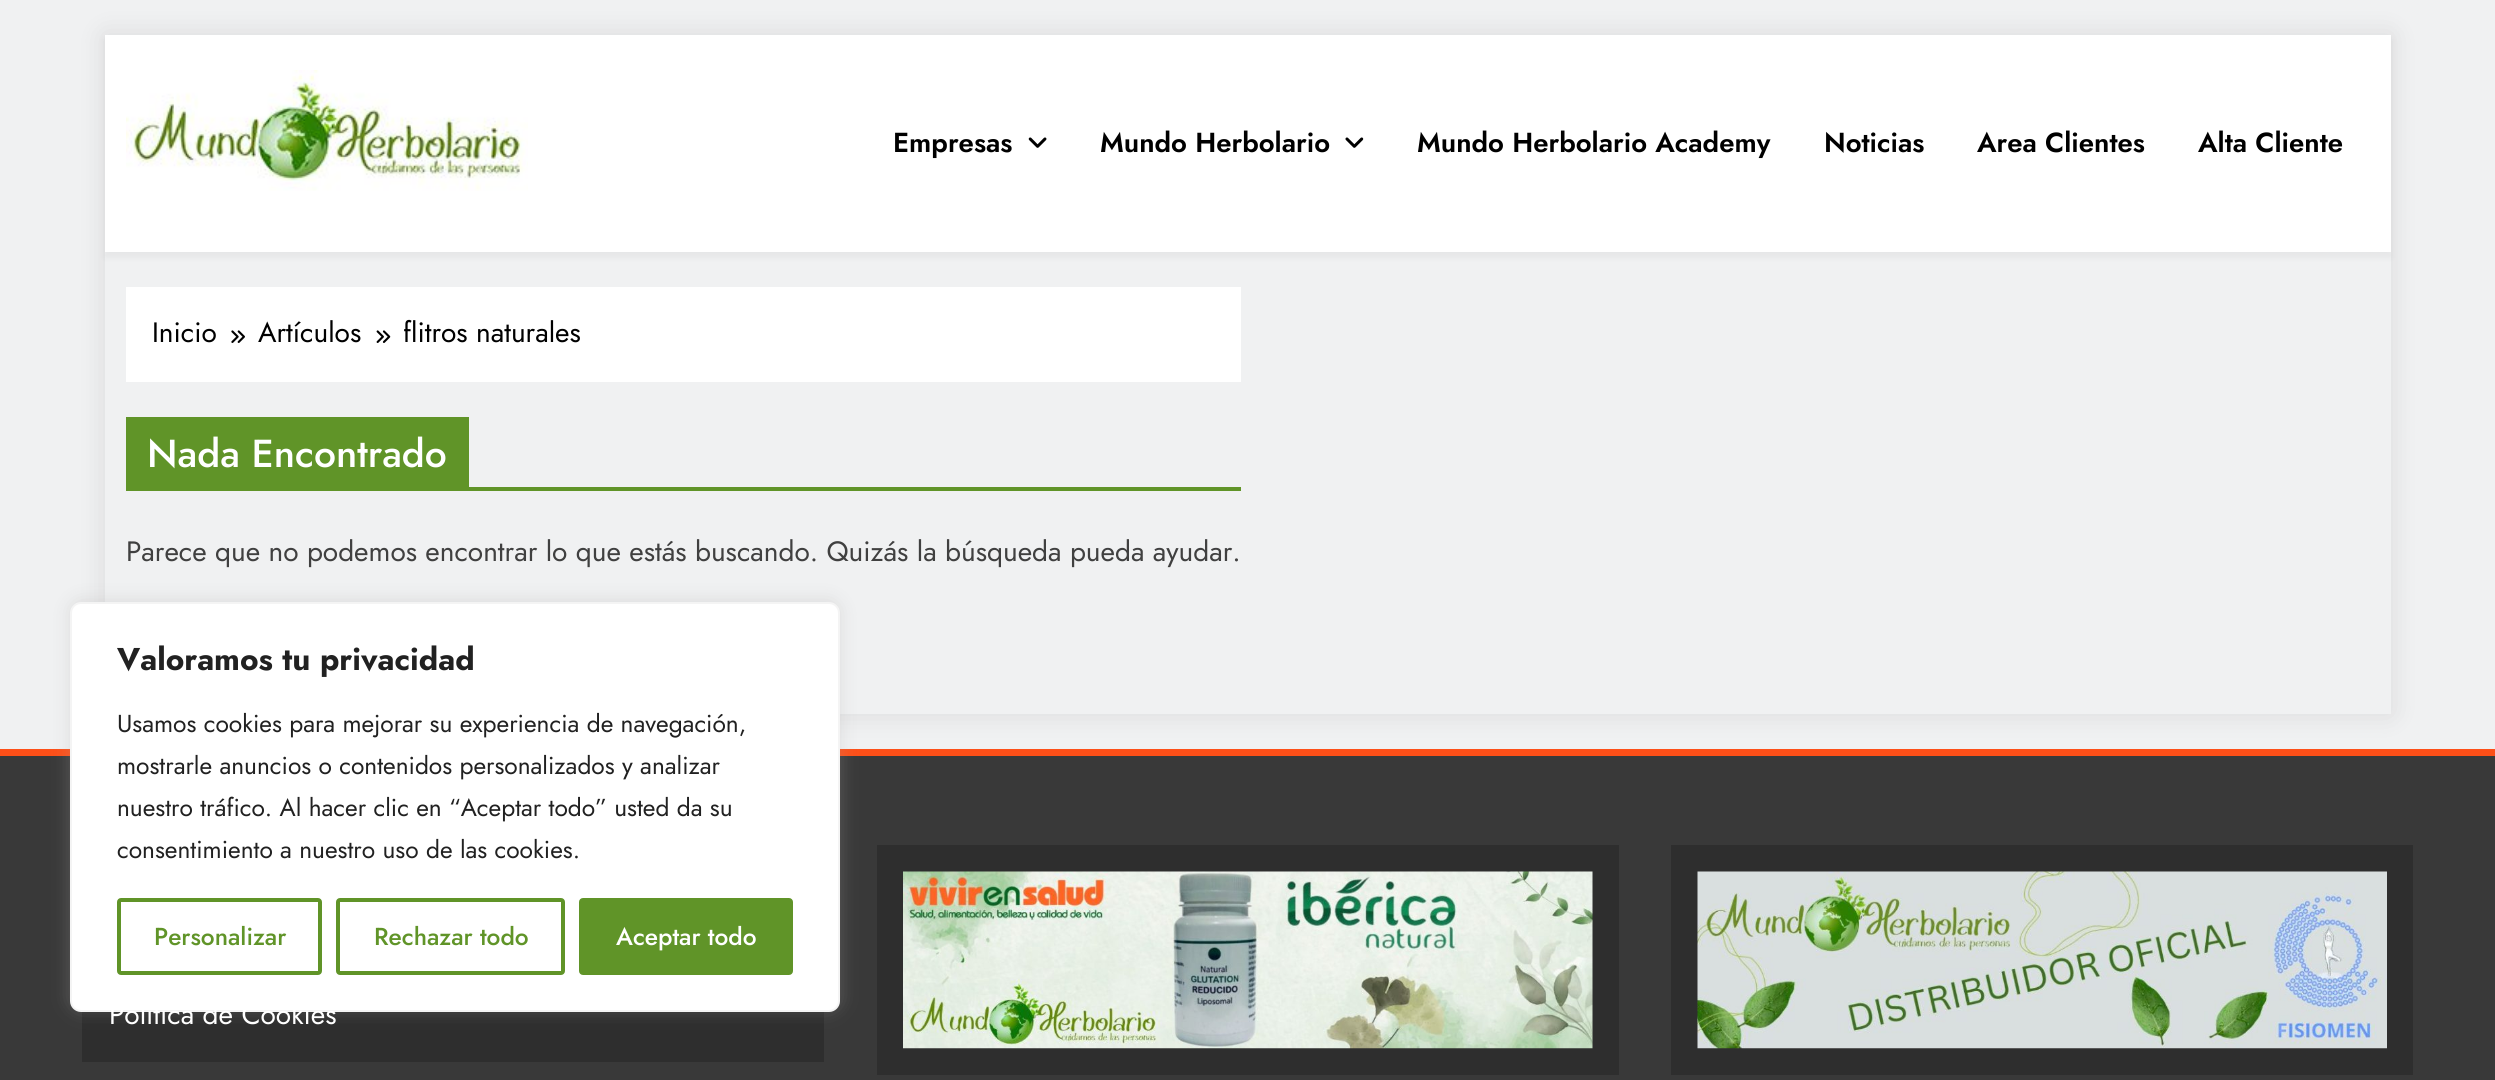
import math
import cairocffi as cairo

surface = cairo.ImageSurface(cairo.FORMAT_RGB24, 2495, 1080)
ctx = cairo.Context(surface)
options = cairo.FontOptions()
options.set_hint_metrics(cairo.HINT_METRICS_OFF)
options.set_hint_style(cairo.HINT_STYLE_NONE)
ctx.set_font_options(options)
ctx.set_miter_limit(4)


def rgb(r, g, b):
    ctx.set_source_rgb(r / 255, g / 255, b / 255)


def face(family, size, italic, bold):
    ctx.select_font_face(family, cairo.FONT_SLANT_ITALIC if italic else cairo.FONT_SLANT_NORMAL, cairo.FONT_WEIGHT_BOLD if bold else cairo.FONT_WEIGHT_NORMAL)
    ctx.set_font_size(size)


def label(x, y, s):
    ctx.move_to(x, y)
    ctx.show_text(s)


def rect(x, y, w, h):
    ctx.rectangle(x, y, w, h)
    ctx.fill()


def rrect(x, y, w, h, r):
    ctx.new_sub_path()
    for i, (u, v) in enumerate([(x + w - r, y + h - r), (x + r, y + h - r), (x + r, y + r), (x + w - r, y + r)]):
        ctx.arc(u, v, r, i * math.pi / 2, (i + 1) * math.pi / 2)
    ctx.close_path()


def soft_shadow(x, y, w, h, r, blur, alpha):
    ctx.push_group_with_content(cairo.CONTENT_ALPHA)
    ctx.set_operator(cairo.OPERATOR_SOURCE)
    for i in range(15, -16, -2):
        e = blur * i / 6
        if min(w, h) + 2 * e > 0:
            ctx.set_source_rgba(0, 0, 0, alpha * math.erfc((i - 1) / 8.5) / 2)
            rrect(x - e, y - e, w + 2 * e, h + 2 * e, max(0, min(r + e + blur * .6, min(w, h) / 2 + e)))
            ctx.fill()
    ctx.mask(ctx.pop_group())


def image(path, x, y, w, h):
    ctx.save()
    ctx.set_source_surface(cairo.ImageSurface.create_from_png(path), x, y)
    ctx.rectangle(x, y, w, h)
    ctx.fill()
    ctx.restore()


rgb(240, 241, 242)
ctx.paint()
rgb(253, 79, 24)
rect(0, 749, 2495, 7)
ctx.save()
ctx.set_fill_rule(cairo.FILL_RULE_EVEN_ODD)
ctx.new_path()
ctx.move_to(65, 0)
ctx.line_to(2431, 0)
ctx.line_to(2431, 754)
ctx.line_to(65, 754)
ctx.close_path()
ctx.move_to(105, 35)
ctx.line_to(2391, 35)
ctx.line_to(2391, 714)
ctx.line_to(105, 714)
ctx.close_path()
ctx.clip()
rgb(0, 0, 0)
soft_shadow(105, 35, 2286, 679, 0, 13, 0.1)
ctx.restore()
rgb(0, 0, 0)
soft_shadow(105, 40, 2286, 217, 0, 3.5, 0.05)
rgb(255, 255, 255)
rect(105, 35, 2286, 217)
image('image0.png', 126, 70, 402, 121)
face('Jost SemiBold', 27.5, 0, 0)
rgb(0, 0, 0)
label(893, 152, 'Empresas')
image('image1.png', 1028, 137, 19, 11)
label(1100, 152, 'Mundo Herbolario')
image('image2.png', 1345, 137, 19, 11)
label(1417, 152, 'Mundo Herbolario Academy')
label(1824, 152, 'Noticias')
label(1977, 152, 'Area Clientes')
label(2198, 152, 'Alta Cliente')
rgb(255, 255, 255)
rect(126, 287, 1115, 95)
face('Jost', 28, 0, 0)
rgb(0, 0, 0)
label(152, 342, 'Inicio')
image('image3.png', 231, 330, 14, 13)
label(258, 342, 'Artículos')
image('image4.png', 376, 330, 15, 13)
label(403, 342, 'flitros naturales')
rgb(96, 148, 40)
rect(126, 487, 1115, 4)
rect(126, 417, 343, 70)
face('Jost Medium', 39, 0, 0)
rgb(255, 255, 255)
label(147, 467, 'Nada Encontrado')
face('Jost', 28, 0, 0)
rgb(64, 64, 64)
label(126, 561, 'Parece que no podemos encontrar lo que estás buscando. Quizás la búsqueda pueda ayudar.')
rgb(57, 57, 57)
rect(0, 756, 2495, 324)
rgb(46, 46, 46)
rect(82, 1012, 742, 50)
rgb(172, 171, 171)
soft_shadow(70, 600, 770, 410, 11, 9, 0.3)
rgb(255, 255, 255)
rrect(71, 603, 768, 408, 10)
ctx.fill_preserve()
rgb(244, 244, 244)
ctx.stroke()
face('Jost', 31.5, 0, 1)
rgb(33, 33, 33)
label(117, 670, 'Valoramos tu privacidad')
face('Jost', 24.5, 0, 0)
label(117, 732, 'Usamos cookies para mejorar su experiencia de navegación,')
label(117, 774, 'mostrarle anuncios o contenidos personalizados y analizar')
label(117, 816, 'nuestro tráfico. Al hacer clic en “Aceptar todo” usted da su')
label(117, 858, 'consentimiento a nuestro uso de las cookies.')
rrect(119, 900, 201, 73, 2)
rgb(96, 148, 40)
ctx.set_line_width(4)
ctx.stroke()
face('Jost Medium', 24.5, 0, 0)
label(154, 945, 'Personalizar')
rrect(338, 900, 225, 73, 2)
ctx.stroke()
label(374, 945, 'Rechazar todo')
rrect(581, 900, 210, 73, 2)
ctx.fill_preserve()
ctx.stroke()
rgb(255, 255, 255)
label(616, 945, 'Aceptar todo')
face('Jost', 28, 0, 0)
label(109, 1024, 'Politica de Cookies')
rgb(46, 46, 46)
rect(877, 845, 742, 230)
image('image5.png', 903, 871, 690, 178)
rect(1671, 845, 742, 230)
image('image6.png', 1697, 871, 690, 178)
surface.write_to_png('render.png')
